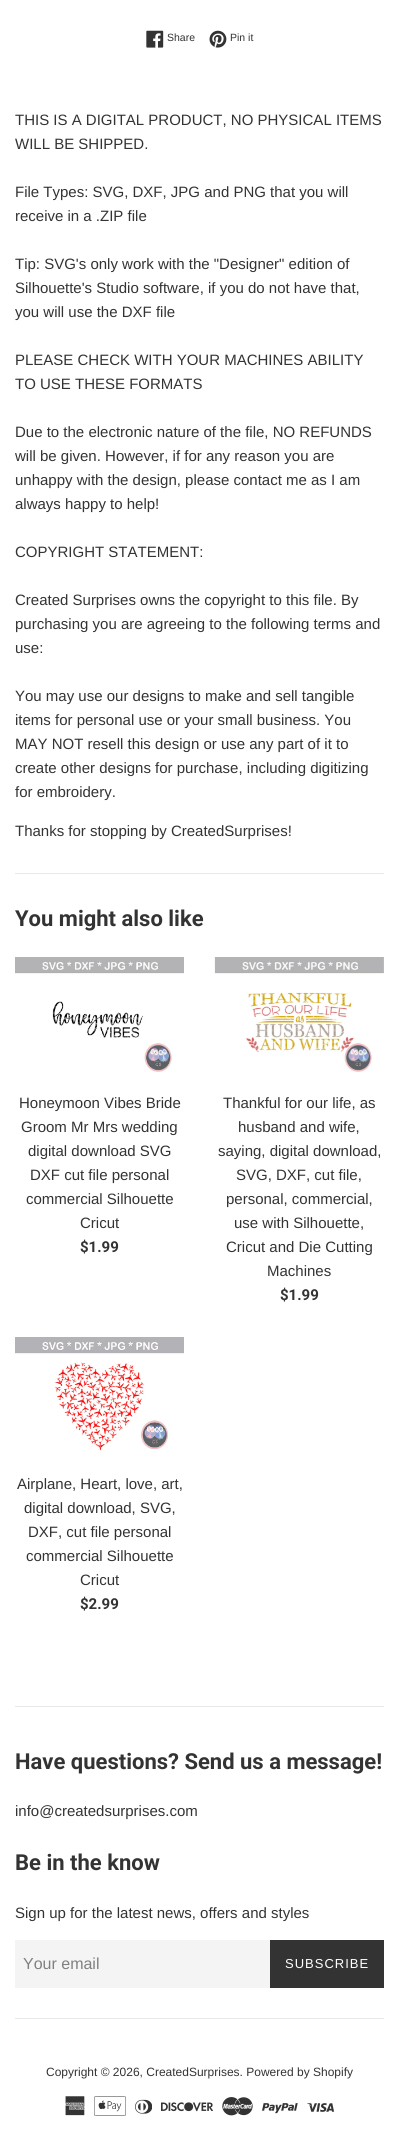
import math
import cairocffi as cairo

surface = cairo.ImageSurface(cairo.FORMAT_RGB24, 399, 2147)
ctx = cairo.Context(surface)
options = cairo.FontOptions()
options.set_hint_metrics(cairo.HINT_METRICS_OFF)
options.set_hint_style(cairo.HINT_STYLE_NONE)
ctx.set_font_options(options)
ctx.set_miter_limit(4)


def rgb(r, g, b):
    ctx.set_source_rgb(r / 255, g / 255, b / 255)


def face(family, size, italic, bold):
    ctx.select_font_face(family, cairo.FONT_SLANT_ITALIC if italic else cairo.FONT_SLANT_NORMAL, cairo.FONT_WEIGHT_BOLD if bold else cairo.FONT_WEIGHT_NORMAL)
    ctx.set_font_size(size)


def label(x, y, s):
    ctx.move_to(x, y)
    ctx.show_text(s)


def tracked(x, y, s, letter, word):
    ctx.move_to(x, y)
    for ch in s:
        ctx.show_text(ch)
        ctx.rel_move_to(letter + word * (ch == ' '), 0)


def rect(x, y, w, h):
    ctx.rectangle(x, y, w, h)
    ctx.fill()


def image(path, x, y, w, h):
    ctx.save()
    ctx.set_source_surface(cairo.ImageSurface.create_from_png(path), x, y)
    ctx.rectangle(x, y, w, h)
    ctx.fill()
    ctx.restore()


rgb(255, 255, 255)
ctx.paint()
image('image0.png', 146, 30, 18, 18)
face('Liberation Sans', 10.5, 0, 0)
rgb(51, 51, 51)
label(167, 41, 'Share')
image('image1.png', 209, 30, 18, 18)
label(230, 41, 'Pin it')
face('Liberation Sans', 15, 0, 0)
label(15, 125, 'THIS IS A DIGITAL PRODUCT, NO PHYSICAL ITEMS')
label(15, 149, 'WILL BE SHIPPED.')
label(15, 197, 'File Types: SVG, DXF, JPG and PNG that you will')
label(15, 221, 'receive in a .ZIP file')
label(15, 269, 'Tip: SVG\'s only work with the "Designer" edition of')
label(15, 293, 'Silhouette\'s Studio software, if you do not have that,')
label(15, 317, 'you will use the DXF file')
label(15, 365, 'PLEASE CHECK WITH YOUR MACHINES ABILITY')
label(15, 389, 'TO USE THESE FORMATS')
label(15, 437, 'Due to the electronic nature of the file, NO REFUNDS')
label(15, 461, 'will be given. However, if for any reason you are')
label(15, 485, 'unhappy with the design, please contact me as I am')
label(15, 509, 'always happy to help!')
label(15, 557, 'COPYRIGHT STATEMENT:')
label(15, 605, 'Created Surprises owns the copyright to this file. By')
label(15, 629, 'purchasing you are agreeing to the following terms and')
label(15, 653, 'use:')
label(15, 701, 'You may use our designs to make and sell tangible')
label(15, 725, 'items for personal use or your small business. You')
label(15, 749, 'MAY NOT resell this design or use any part of it to')
label(15, 773, 'create other designs for purchase, including digitizing')
label(15, 797, 'for embroidery.')
label(15, 836, 'Thanks for stopping by CreatedSurprises!')
rgb(232, 232, 232)
rect(15, 873, 369, 1)
face('Roboto', 22, 0, 1)
rgb(51, 51, 51)
label(15, 926, 'You might also like')
image('image2.png', 15, 957, 169, 115)
face('Liberation Sans', 15, 0, 0)
label(19, 1108, 'Honeymoon Vibes Bride')
label(21, 1132, 'Groom Mr Mrs wedding')
label(28, 1156, 'digital download SVG')
label(30, 1180, 'DXF cut file personal')
label(26, 1204, 'commercial Silhouette')
label(80, 1228, 'Cricut')
face('Roboto', 15, 0, 1)
label(80, 1252, '$1.99')
image('image3.png', 214, 957, 170, 115)
face('Liberation Sans', 15, 0, 0)
label(223, 1108, 'Thankful for our life, as')
label(238, 1132, 'husband and wife,')
label(218, 1156, 'saying, digital download,')
label(236, 1180, 'SVG, DXF, cut file,')
label(226, 1204, 'personal, commercial,')
label(234, 1228, 'use with Silhouette,')
label(226, 1252, 'Cricut and Die Cutting')
label(267, 1276, 'Machines')
face('Roboto', 15, 0, 1)
label(280, 1300, '$1.99')
image('image4.png', 15, 1337, 169, 114)
face('Liberation Sans', 15, 0, 0)
label(17, 1489, 'Airplane, Heart, love, art,')
label(24, 1513, 'digital download, SVG,')
label(28, 1537, 'DXF, cut file personal')
label(26, 1561, 'commercial Silhouette')
label(80, 1585, 'Cricut')
face('Roboto', 15, 0, 1)
label(80, 1609, '$2.99')
rgb(232, 232, 232)
rect(15, 1706, 369, 1)
face('Roboto', 22, 0, 1)
rgb(51, 51, 51)
label(15, 1769, 'Have questions? Send us a message!')
face('Liberation Sans', 15, 0, 0)
label(15, 1816, 'info@createdsurprises.com')
face('Roboto', 22, 0, 1)
label(15, 1870, 'Be in the know')
face('Liberation Sans', 15, 0, 0)
label(15, 1918, 'Sign up for the latest news, offers and styles')
rgb(244, 244, 244)
rect(15, 1940, 255, 48)
face('Liberation Sans', 16, 0, 0)
rgb(128, 128, 128)
label(23, 1969, 'Your email')
rgb(51, 51, 51)
rect(270, 1940, 114, 48)
face('Liberation Sans', 13, 0, 0)
rgb(255, 255, 255)
tracked(285, 1968, 'SUBSCRIBE', 1, 0)
rgb(232, 232, 232)
rect(15, 2018, 369, 1)
face('Liberation Sans', 12, 0, 0)
rgb(51, 51, 51)
label(46, 2076, 'Copyright © 2026, CreatedSurprises. Powered by Shopify')
image('image5.png', 65, 2096, 20, 20)
image('image6.png', 94, 2096, 32, 20)
image('image7.png', 135, 2099, 17, 15)
image('image8.png', 161, 2102, 52, 10)
image('image9.png', 222, 2097, 31, 19)
image('image10.png', 262, 2103, 36, 11)
image('image11.png', 307, 2103, 27, 9)
surface.write_to_png('render.png')
